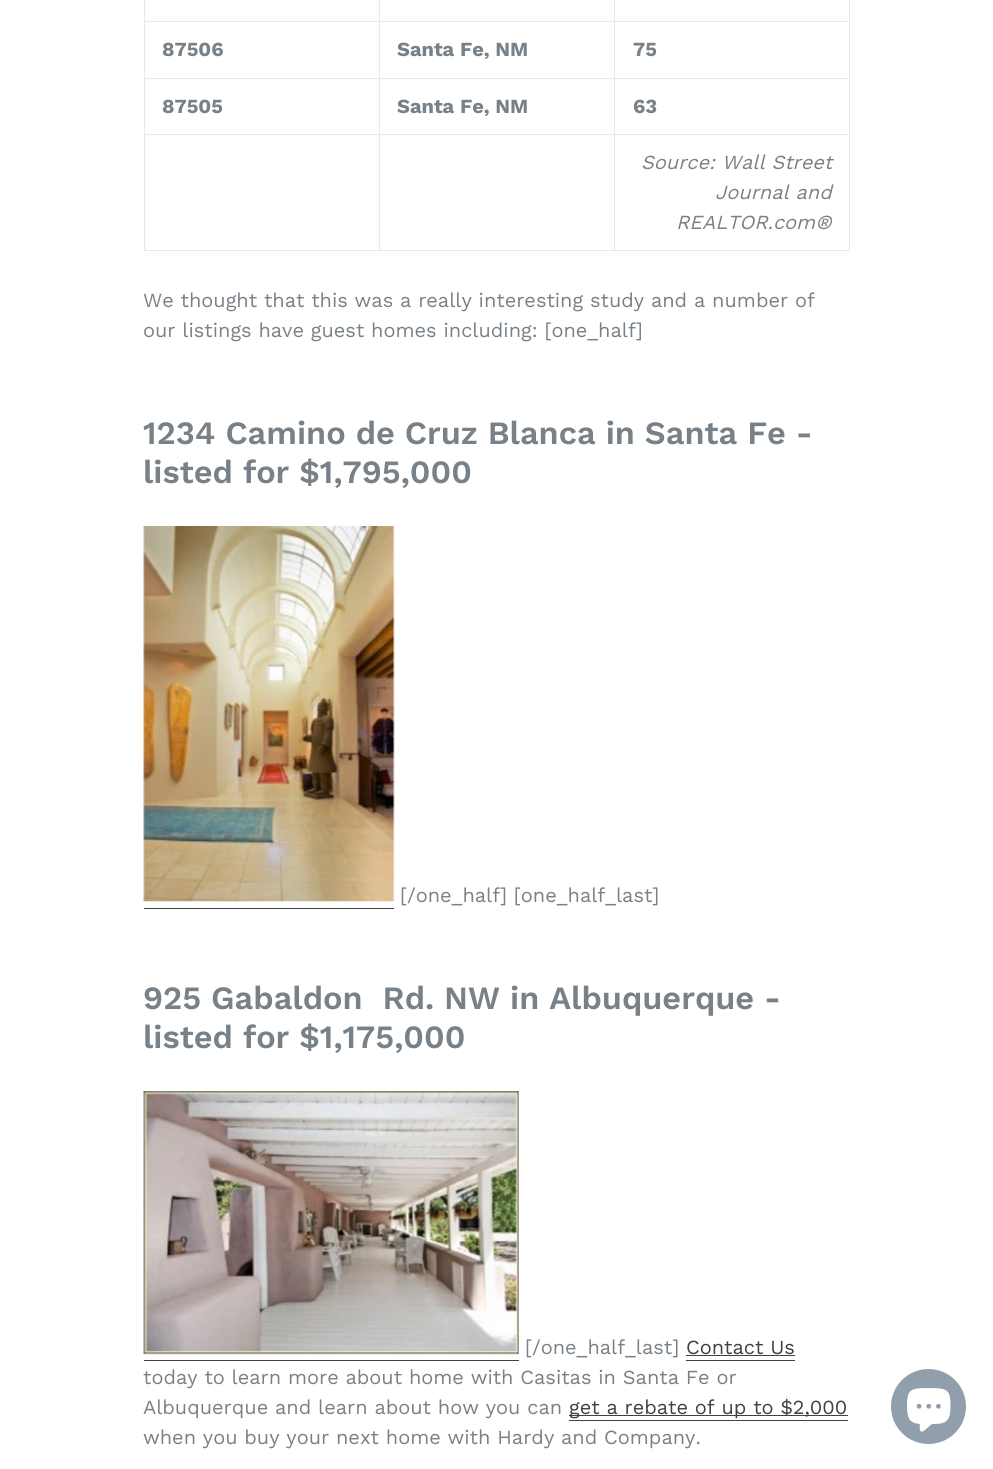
import math
import cairocffi as cairo

surface = cairo.ImageSurface(cairo.FORMAT_RGB24, 993, 1469)
ctx = cairo.Context(surface)
options = cairo.FontOptions()
options.set_hint_metrics(cairo.HINT_METRICS_OFF)
options.set_hint_style(cairo.HINT_STYLE_NONE)
ctx.set_font_options(options)
ctx.set_miter_limit(4)


def rgb(r, g, b):
    ctx.set_source_rgb(r / 255, g / 255, b / 255)


def face(family, size, italic, bold):
    ctx.select_font_face(family, cairo.FONT_SLANT_ITALIC if italic else cairo.FONT_SLANT_NORMAL, cairo.FONT_WEIGHT_BOLD if bold else cairo.FONT_WEIGHT_NORMAL)
    ctx.set_font_size(size)


def label(x, y, s):
    ctx.move_to(x, y)
    ctx.show_text(s)


def rect(x, y, w, h):
    ctx.rectangle(x, y, w, h)
    ctx.fill()


def image(path, x, y, w, h):
    ctx.save()
    ctx.set_source_surface(cairo.ImageSurface.create_from_png(path), x, y)
    ctx.rectangle(x, y, w, h)
    ctx.fill()
    ctx.restore()


rgb(255, 255, 255)
ctx.paint()
rgb(232, 233, 235)
rect(614, 21, 236, 1)
rect(614, 78, 236, 1)
rect(614, 134, 236, 1)
rect(849, 134, 1, 117)
rect(614, 250, 236, 1)
rect(614, 134, 1, 117)
rect(379, 134, 236, 1)
rect(614, 78, 1, 57)
rect(379, 78, 236, 1)
rect(614, 21, 1, 58)
rect(379, 21, 236, 1)
rect(379, 250, 236, 1)
rect(379, 134, 1, 117)
rect(144, 134, 236, 1)
rect(379, 78, 1, 57)
rect(144, 78, 236, 1)
rect(379, 21, 1, 58)
rect(144, 21, 236, 1)
rect(379, 0, 1, 23)
rect(614, 0, 1, 23)
rect(144, 250, 236, 1)
rect(144, 134, 1, 117)
rect(144, 78, 1, 57)
rect(144, 0, 1, 79)
face('Work Sans', 20, 0, 1)
rgb(120, 129, 136)
label(162, 56, '87506')
label(397, 56, 'Santa Fe, NM')
rgb(232, 233, 235)
rect(849, 78, 1, 57)
rect(849, 0, 1, 79)
rgb(120, 129, 136)
label(633, 56, '75')
label(162, 113, '87505')
label(397, 113, 'Santa Fe, NM')
label(633, 113, '63')
face('Work Sans', 20, 1, 0)
label(641, 169, 'Source: Wall Street')
label(715, 199, 'Journal and')
label(676, 229, 'REALTOR.com®')
face('Work Sans', 20, 0, 0)
label(143, 307, 'We thought that this was a really interesting study and a number of')
label(143, 337, 'our listings have guest homes including: [one_half]')
face('Work Sans SemiBold', 32.5, 0, 0)
label(143, 444, '1234 Camino de Cruz Blanca in Santa Fe -')
label(143, 483, 'listed for $1,795,000')
image('image0.png', 143, 526, 252, 376)
face('Work Sans', 20, 0, 0)
label(400, 902, '[/one_half] [one_half_last]')
rgb(61, 66, 70)
rect(144, 908, 250, 1)
face('Work Sans SemiBold', 32.5, 0, 0)
rgb(120, 129, 136)
label(143, 1009, '925 Gabaldon  Rd. NW in Albuquerque -')
label(143, 1048, 'listed for $1,175,000')
image('image1.png', 143, 1091, 376, 264)
face('Work Sans', 20, 0, 0)
label(525, 1354, '[/one_half_last]')
rgb(61, 66, 70)
label(686, 1354, 'Contact Us')
rect(686, 1360, 109, 1)
rect(686, 1355, 109, 1)
rect(144, 1360, 375, 1)
rgb(120, 129, 136)
label(143, 1384, 'today to learn more about home with Casitas in Santa Fe or')
label(143, 1414, 'Albuquerque and learn about how you can')
rgb(61, 66, 70)
rect(569, 1415, 279, 1)
label(569, 1414, 'get a rebate of up to $2,000')
rect(569, 1420, 279, 1)
rgb(120, 129, 136)
label(143, 1444, 'when you buy your next home with Hardy and Company.')
rgb(144, 159, 171)
ctx.new_path()
ctx.arc(928.5, 1406.5, 37.5, 0, 2 * math.pi)
ctx.fill()
image('image2.png', 907, 1388, 44, 44)
surface.write_to_png('render.png')
